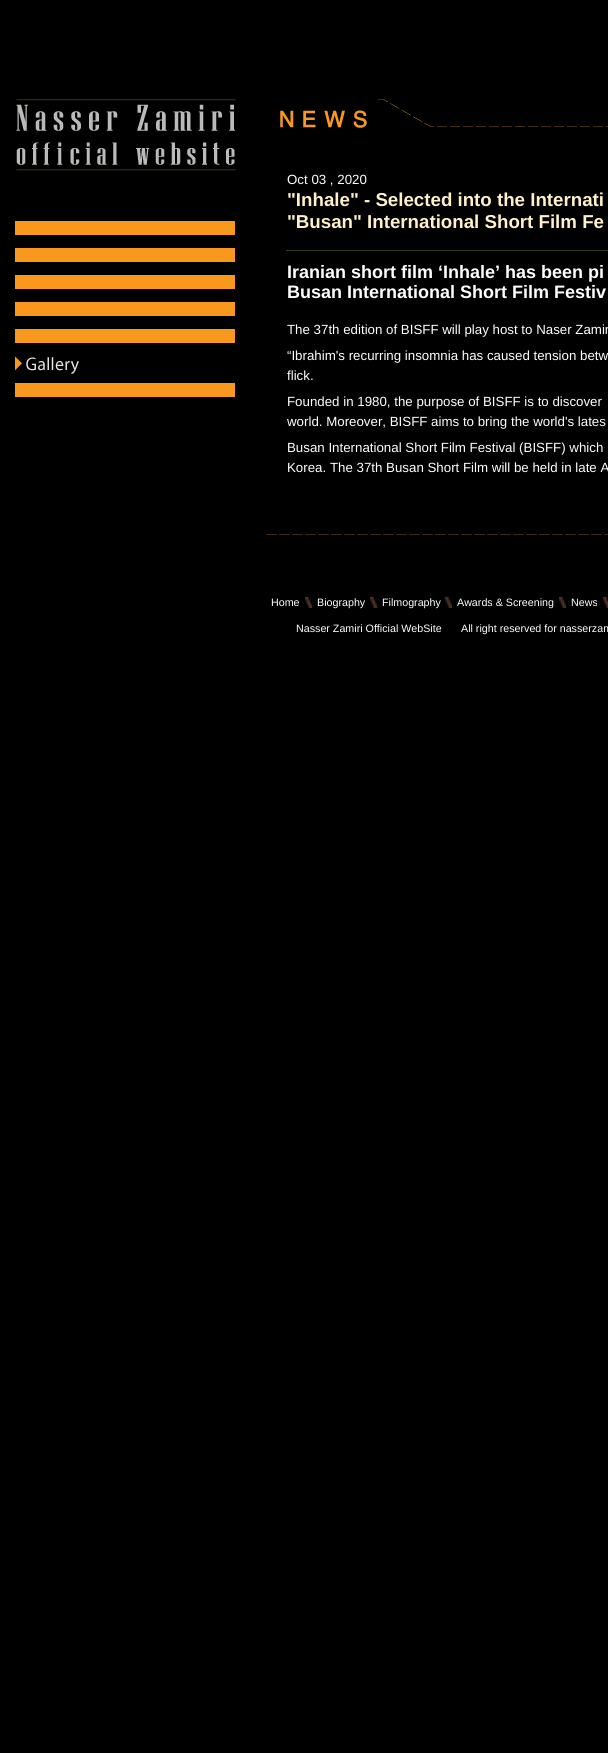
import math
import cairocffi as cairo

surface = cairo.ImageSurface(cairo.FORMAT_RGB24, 608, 1753)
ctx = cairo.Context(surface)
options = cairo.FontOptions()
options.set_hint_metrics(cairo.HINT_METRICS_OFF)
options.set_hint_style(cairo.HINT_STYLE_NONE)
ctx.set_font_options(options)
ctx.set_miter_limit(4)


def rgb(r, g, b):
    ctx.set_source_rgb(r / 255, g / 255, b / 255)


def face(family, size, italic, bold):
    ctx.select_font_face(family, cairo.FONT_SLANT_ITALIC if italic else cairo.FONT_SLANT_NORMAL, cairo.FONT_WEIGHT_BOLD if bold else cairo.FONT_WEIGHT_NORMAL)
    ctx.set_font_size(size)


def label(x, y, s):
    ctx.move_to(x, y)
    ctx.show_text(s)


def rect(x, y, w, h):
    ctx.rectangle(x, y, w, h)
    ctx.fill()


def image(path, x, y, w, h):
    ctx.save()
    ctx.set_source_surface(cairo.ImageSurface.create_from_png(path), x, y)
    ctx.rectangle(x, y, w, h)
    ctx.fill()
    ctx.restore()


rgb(0, 0, 0)
ctx.paint()
image('image0.png', 16, 99, 220, 72)
rgb(248, 153, 29)
rect(15, 221, 220, 14)
rect(15, 248, 220, 14)
rect(15, 275, 220, 14)
rect(15, 302, 220, 14)
rect(15, 329, 220, 14)
image('image1.png', 15, 356, 220, 18)
rect(15, 383, 220, 14)
image('image2.png', 280, 110, 87, 18)
image('image3.png', 378, 99, 56, 28)
image('image4.png', 437, 126, 171, 1)
face('Liberation Sans', 13.3, 0, 0)
rgb(255, 255, 255)
label(287, 184, 'Oct 03 , 2020')
face('Liberation Sans', 18.7, 0, 1)
rgb(255, 240, 200)
label(287, 206, '"Inhale" - Selected into the Internati')
label(287, 228, '"Busan" International Short Film Fe')
rgb(45, 62, 19)
rect(286, 250, 322, 1)
face('Liberation Sans', 18, 0, 1)
rgb(255, 255, 255)
label(287, 278, 'Iranian short film ‘Inhale’ has been pi')
label(287, 298, 'Busan International Short Film Festiv')
face('Liberation Sans', 13.3, 0, 0)
label(287, 334, 'The 37th edition of BISFF will play host to Naser Zamir')
label(287, 360, '“Ibrahim\'s recurring insomnia has caused tension betw')
label(287, 380, 'flick.')
label(287, 406, 'Founded in 1980, the purpose of BISFF is to discover')
label(287, 426, 'world. Moreover, BISFF aims to bring the world\'s lates')
label(287, 452, 'Busan International Short Film Festival (BISFF) which')
label(287, 472, 'Korea. The 37th Busan Short Film will be held in late A')
image('image5.png', 266, 534, 342, 1)
face('Liberation Sans', 10.7, 0, 0)
label(271, 606, 'Home')
image('image6.png', 305, 597, 7, 11)
label(317, 606, 'Biography')
image('image7.png', 370, 597, 7, 11)
label(382, 606, 'Filmography')
image('image7.png', 445, 597, 7, 11)
label(457, 606, 'Awards & Screening')
image('image6.png', 559, 597, 7, 11)
label(571, 606, 'News')
image('image8.png', 603, 597, 5, 11)
label(296, 632, 'Nasser Zamiri Official WebSite')
label(461, 632, 'All right reserved for nasserzam')
surface.write_to_png('render.png')
